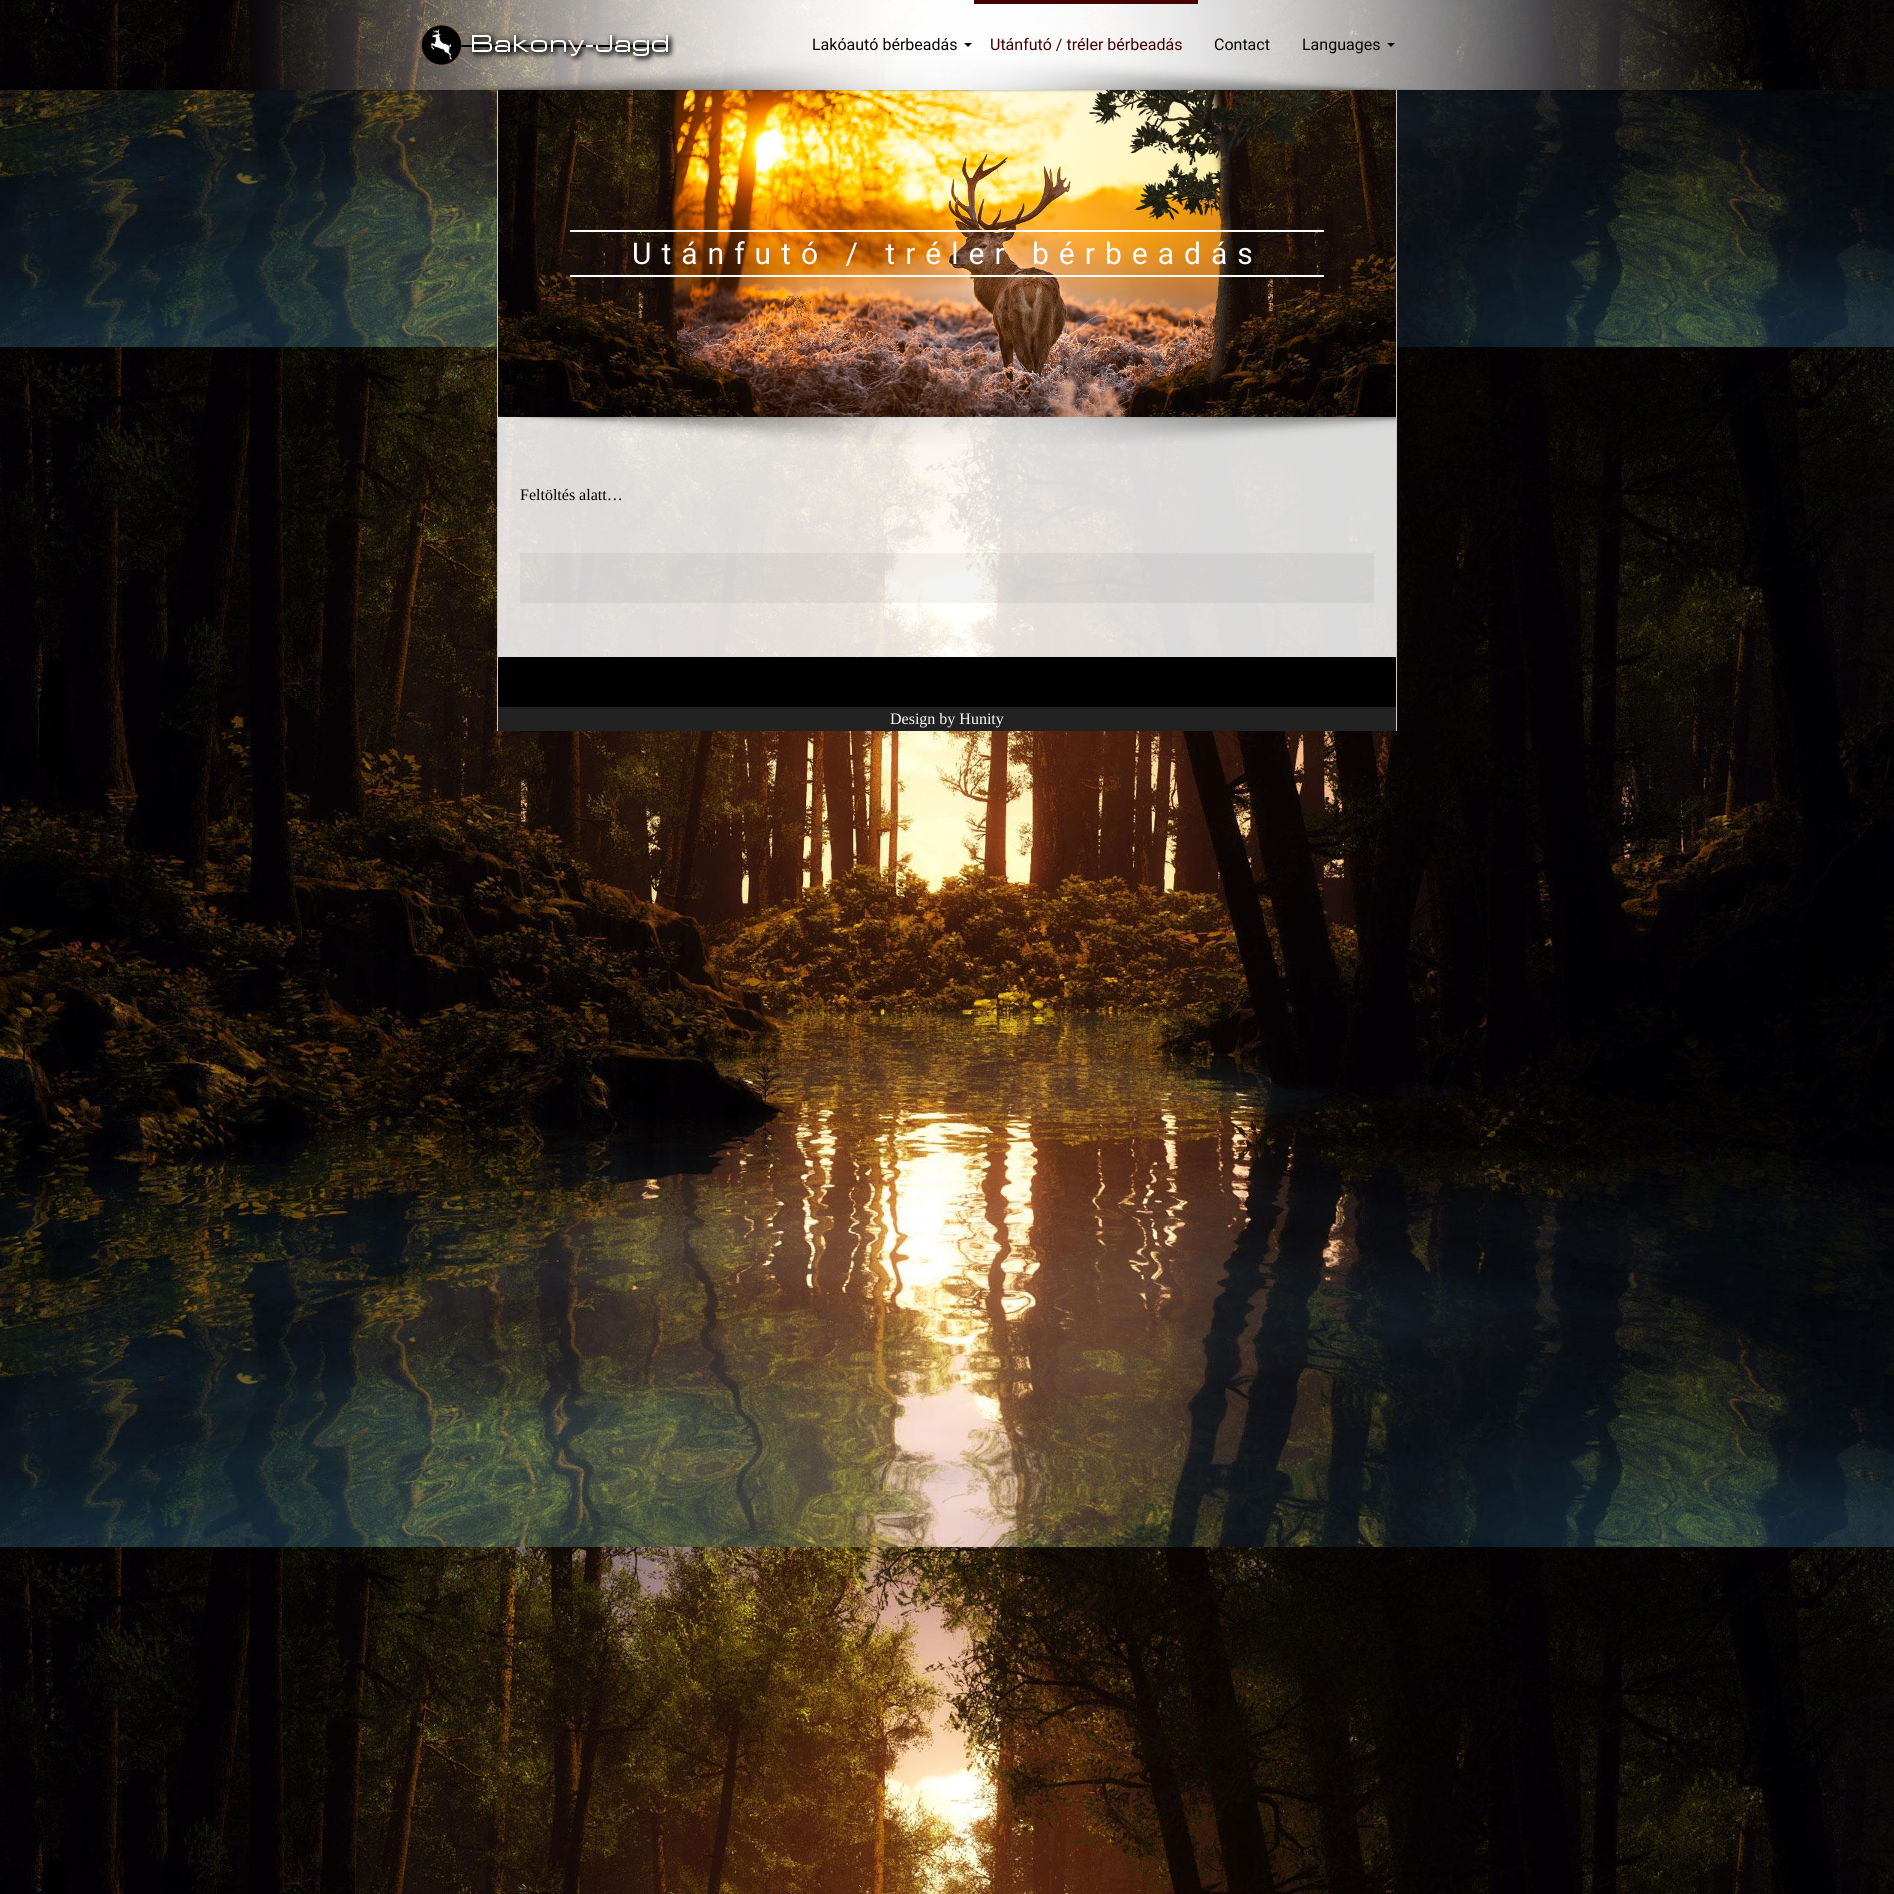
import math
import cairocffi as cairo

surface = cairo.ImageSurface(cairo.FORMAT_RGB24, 1894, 1894)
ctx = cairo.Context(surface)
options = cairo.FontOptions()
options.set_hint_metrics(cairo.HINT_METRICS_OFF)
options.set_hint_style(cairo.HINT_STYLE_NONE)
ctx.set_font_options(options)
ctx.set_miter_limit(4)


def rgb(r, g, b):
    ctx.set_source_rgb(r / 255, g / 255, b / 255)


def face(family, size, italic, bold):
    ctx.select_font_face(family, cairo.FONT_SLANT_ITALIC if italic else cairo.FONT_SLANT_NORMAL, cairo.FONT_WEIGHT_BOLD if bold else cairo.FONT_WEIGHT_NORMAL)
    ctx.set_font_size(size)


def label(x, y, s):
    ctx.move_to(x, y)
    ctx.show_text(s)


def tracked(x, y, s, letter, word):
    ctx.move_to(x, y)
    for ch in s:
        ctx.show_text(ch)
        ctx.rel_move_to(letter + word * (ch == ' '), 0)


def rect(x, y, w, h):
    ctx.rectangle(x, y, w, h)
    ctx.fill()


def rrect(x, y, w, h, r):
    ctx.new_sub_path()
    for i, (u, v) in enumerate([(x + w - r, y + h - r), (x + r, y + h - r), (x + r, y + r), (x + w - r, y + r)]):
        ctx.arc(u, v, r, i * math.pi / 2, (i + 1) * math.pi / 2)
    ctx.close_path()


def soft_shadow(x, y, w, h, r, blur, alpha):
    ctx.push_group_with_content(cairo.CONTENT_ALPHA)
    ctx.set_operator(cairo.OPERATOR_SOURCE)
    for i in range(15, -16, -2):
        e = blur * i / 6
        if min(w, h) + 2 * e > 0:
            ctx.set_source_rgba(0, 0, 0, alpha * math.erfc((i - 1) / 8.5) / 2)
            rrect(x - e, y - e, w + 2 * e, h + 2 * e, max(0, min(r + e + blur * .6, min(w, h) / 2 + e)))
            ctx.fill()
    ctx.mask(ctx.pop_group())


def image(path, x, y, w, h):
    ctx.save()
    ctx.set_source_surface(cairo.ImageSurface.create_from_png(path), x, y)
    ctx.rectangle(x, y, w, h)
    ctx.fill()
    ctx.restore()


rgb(255, 255, 255)
ctx.paint()
image('image0.png', 0, 90, 1894, 1804)
ctx.set_source_rgba(1, 1, 1, 0.85)
rect(498, 163, 898, 494)
rgb(204, 204, 204)
rect(1396, 90, 1, 641)
rect(497, 90, 1, 641)
image('image3.png', 498, 90, 898, 327)
rgb(0, 0, 0)
soft_shadow(0, 0, 1894, 90, 0, 1.5, 0.33)
image('image1.png', 0, 0, 1894, 90)
image('image2.png', 421, 25, 255, 40)
face('Roboto', 16, 0, 0)
rgb(10, 5, 5)
label(812, 50, 'Lakóautó bérbeadás')
ctx.new_path()
ctx.move_to(964, 43)
ctx.line_to(972, 43)
ctx.line_to(968, 47)
ctx.close_path()
ctx.fill()
rgb(66, 0, 0)
rect(974, 0, 224, 4)
label(990, 50, 'Utánfutó / tréler bérbeadás')
rgb(10, 5, 5)
label(1214, 50, 'Contact')
label(1302, 50, 'Languages')
ctx.new_path()
ctx.move_to(1387, 43)
ctx.line_to(1395, 43)
ctx.line_to(1391, 47)
ctx.close_path()
ctx.fill()
rgb(255, 255, 255)
rect(570, 230, 754, 2)
rect(570, 275, 754, 2)
face('Roboto', 30, 0, 0)
tracked(632, 264, 'Utánfutó / tréler bérbeadás', 10, 0)
image('image4.png', 520, 417, 876, 27)
face('Liberation Serif', 16, 0, 0)
rgb(0, 0, 0)
label(520, 500, 'Feltöltés alatt…')
ctx.set_source_rgba(0, 0, 0, 0.05)
rect(520, 553, 854, 50)
rgb(0, 0, 0)
rect(498, 657, 898, 50)
rgb(34, 34, 34)
rect(498, 707, 898, 24)
rgb(255, 255, 255)
label(890, 724, 'Design by Hunity')
surface.write_to_png('render.png')
